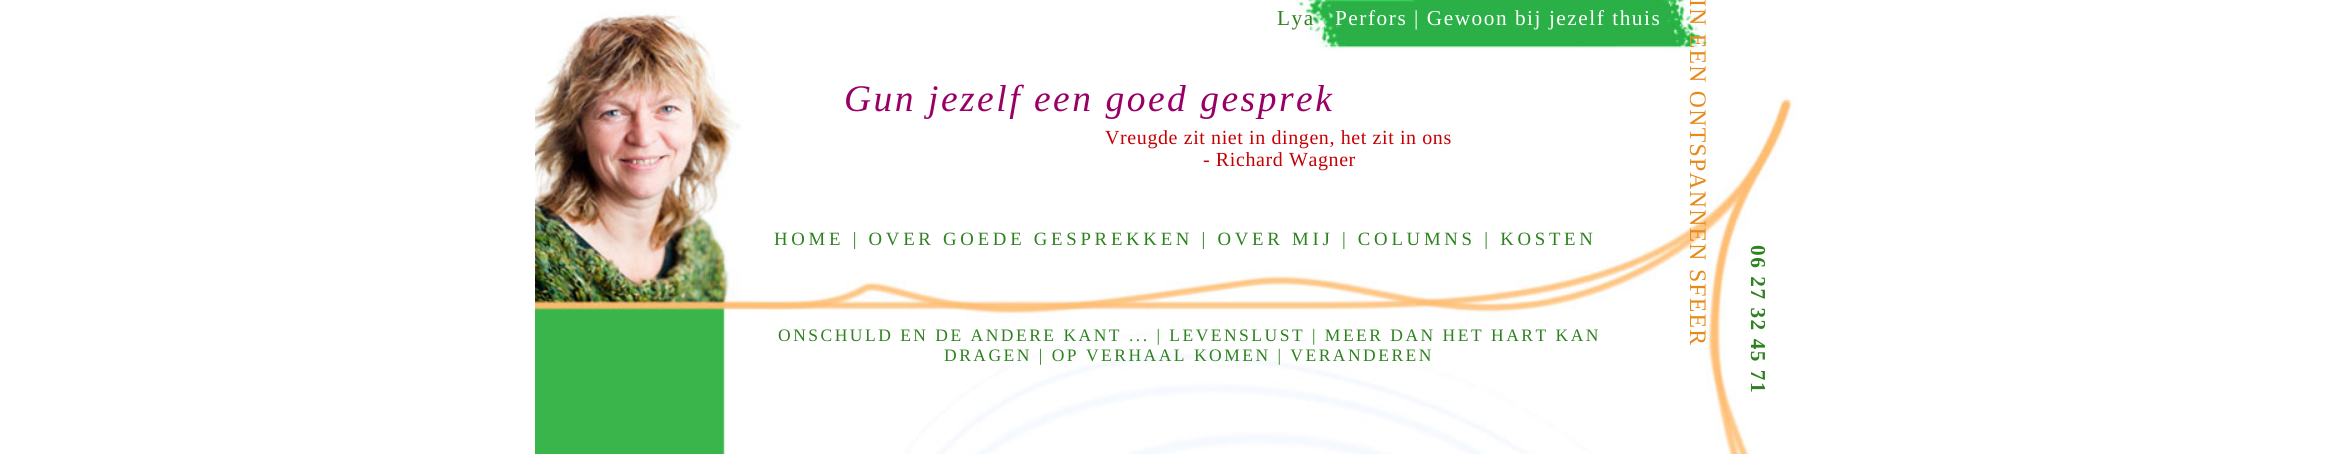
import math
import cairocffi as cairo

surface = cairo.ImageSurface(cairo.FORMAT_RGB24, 2332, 454)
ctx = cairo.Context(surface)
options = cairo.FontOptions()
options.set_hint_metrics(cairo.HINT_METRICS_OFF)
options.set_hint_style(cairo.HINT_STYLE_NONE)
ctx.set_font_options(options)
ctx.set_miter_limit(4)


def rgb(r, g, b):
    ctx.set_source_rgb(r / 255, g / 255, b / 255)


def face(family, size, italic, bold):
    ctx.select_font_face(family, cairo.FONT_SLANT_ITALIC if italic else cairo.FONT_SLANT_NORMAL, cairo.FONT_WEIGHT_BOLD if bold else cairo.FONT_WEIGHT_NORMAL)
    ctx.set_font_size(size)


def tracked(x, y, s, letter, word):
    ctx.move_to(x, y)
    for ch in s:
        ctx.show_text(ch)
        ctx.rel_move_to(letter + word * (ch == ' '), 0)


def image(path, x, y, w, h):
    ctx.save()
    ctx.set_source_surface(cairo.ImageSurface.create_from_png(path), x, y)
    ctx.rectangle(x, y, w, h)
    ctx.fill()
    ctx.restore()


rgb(255, 255, 255)
ctx.paint()
image('image0.png', 535, 0, 1261, 454)
face('Liberation Serif', 21.25, 0, 0)
rgb(45, 129, 31)
tracked(1277, 25, 'Lya', 1.55, 0)
rgb(255, 255, 255)
tracked(1335, 25, 'Perfors | Gewoon bij jezelf thuis', 1.55, 0)
face('Liberation Serif', 23.75, 0, 0)
rgb(231, 137, 27)
ctx.save()
ctx.translate(1690, -1)
ctx.rotate(90 * math.pi / 180)
tracked(0, 0, 'IN EEN ONTSPANNEN SFEER', 1.25, 0)
ctx.restore()
face('Liberation Serif', 37.5, 1, 0)
rgb(153, 0, 102)
tracked(844, 111, 'Gun jezelf een goed gesprek', 2.5, 0)
face('Liberation Serif', 20, 0, 0)
rgb(196, 0, 5)
tracked(1105, 144, 'Vreugde zit niet in dingen, het zit in ons', 0.6, 0)
tracked(1203, 166, '- Richard Wagner', 0.6, 0)
face('Liberation Serif', 18.75, 0, 0)
rgb(45, 129, 31)
tracked(774, 245, 'HOME | OVER GOEDE GESPREKKEN | OVER MIJ | COLUMNS | KOSTEN', 3.75, 0)
face('Liberation Serif', 17.5, 0, 0)
tracked(778, 341, 'ONSCHULD EN DE ANDERE KANT ... | LEVENSLUST | MEER DAN HET HART KAN', 2.5, 0)
tracked(944, 361, 'DRAGEN | OP VERHAAL KOMEN | VERANDEREN', 2.5, 0)
face('Liberation Serif', 21.25, 0, 1)
ctx.save()
ctx.translate(1751, 245)
ctx.rotate(90 * math.pi / 180)
tracked(0, 0, '06 27 32 45 71', 1.55, 0)
ctx.restore()
surface.write_to_png('render.png')
